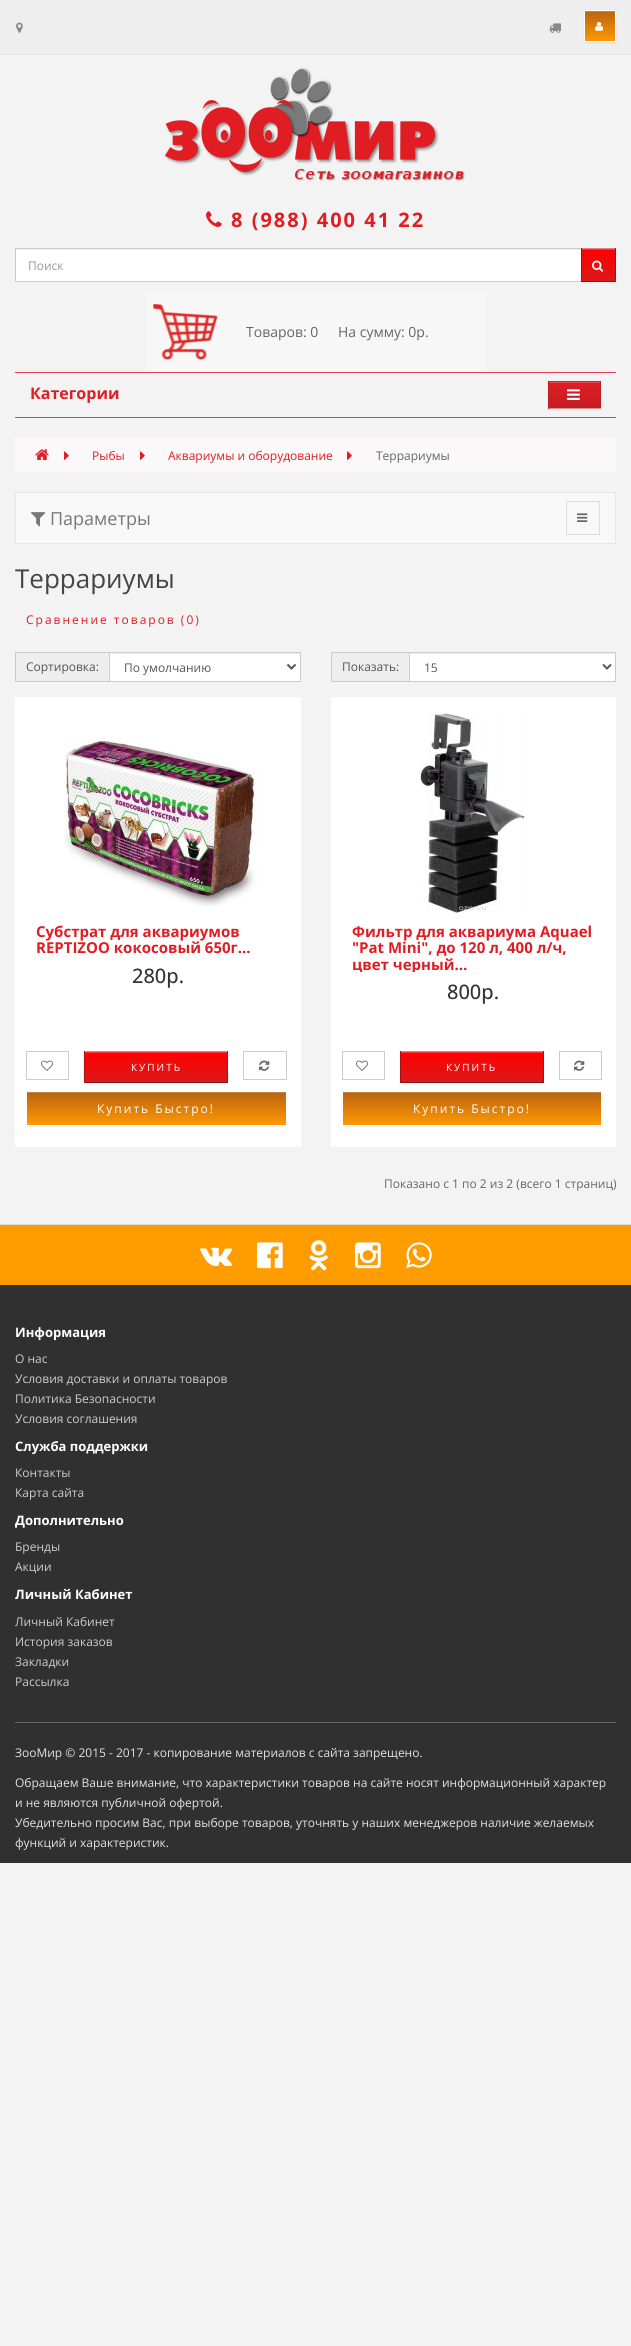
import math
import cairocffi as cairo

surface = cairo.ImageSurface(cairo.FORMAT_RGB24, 631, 2346)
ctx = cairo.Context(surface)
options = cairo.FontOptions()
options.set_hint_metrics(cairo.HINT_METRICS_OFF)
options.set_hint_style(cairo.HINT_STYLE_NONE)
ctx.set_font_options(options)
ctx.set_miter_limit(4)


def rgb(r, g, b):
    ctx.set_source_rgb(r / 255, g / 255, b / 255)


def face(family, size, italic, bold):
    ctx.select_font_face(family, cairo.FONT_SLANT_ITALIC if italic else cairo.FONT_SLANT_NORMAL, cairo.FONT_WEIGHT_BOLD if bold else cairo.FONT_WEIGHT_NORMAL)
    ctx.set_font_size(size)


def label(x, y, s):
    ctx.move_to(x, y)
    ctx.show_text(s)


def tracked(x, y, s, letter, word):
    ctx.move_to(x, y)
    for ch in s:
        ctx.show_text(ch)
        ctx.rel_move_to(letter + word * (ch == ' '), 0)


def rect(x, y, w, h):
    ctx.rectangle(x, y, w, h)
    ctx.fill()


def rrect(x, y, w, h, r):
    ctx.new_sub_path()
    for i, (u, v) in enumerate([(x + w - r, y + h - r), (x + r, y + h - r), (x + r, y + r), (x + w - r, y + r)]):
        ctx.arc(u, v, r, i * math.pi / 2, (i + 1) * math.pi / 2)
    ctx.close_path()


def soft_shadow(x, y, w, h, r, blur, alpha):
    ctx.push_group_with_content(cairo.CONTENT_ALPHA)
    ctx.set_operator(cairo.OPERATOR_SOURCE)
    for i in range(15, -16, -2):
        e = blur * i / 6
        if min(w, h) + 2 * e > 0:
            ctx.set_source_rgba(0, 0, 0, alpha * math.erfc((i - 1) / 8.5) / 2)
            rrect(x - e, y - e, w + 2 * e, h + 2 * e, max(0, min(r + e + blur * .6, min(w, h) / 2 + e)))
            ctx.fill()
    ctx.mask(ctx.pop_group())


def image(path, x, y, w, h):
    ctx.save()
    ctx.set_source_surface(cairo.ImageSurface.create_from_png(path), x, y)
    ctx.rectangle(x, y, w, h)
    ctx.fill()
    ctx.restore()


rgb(243, 243, 243)
ctx.paint()
rgb(238, 238, 238)
rect(0, 0, 631, 54)
rgb(226, 226, 226)
rect(0, 54, 631, 1)
image('image0.png', 16, 22, 7, 11)
image('image1.png', 549, 23, 12, 10)
rgb(0, 0, 0)
soft_shadow(584, 11, 32, 32, 0, 1, 0.05)
gradient = cairo.LinearGradient(600, 11, 600, 41)
gradient.add_color_stop_rgba(0, 0.725, 0.388, 0.071, 1)
gradient.add_color_stop_rgba(1, 1, 0.596, 0, 1)
ctx.set_source(gradient)
rect(585, 12, 30, 29)
rgb(200, 131, 65)
rect(585, 11, 30, 1)
ctx.rectangle(584.5, 10.5, 31, 31)
rgb(255, 255, 255)
ctx.set_line_width(1)
ctx.stroke()
image('image2.png', 595, 22, 8, 9)
image('image3.png', 165, 67, 300, 114)
image('image4.png', 206, 211, 16, 16)
face('Open Sans', 20, 0, 1)
rgb(225, 29, 36)
tracked(231, 227, '8 (988) 400 41 22', 2, 0)
rgb(255, 255, 255)
rect(16, 250, 565, 31)
rgb(236, 236, 236)
rect(16, 249, 565, 1)
ctx.rectangle(15.5, 248.5, 566, 33)
rgb(204, 204, 204)
ctx.stroke()
face('Open Sans', 12, 0, 0)
rgb(153, 153, 153)
label(28, 270, 'Поиск')
rgb(0, 0, 0)
soft_shadow(581, 249, 35, 34, 0, 1, 0.05)
gradient = cairo.LinearGradient(599, 249, 599, 281)
gradient.add_color_stop_rgba(0, 1, 0, 0, 1)
gradient.add_color_stop_rgba(1, 0.855, 0.098, 0.098, 1)
ctx.set_source(gradient)
rect(582, 250, 33, 31)
rgb(254, 51, 51)
rect(582, 249, 33, 1)
rgb(214, 134, 134)
rect(581, 248, 35, 1)
rgb(166, 17, 17)
rect(615, 248, 1, 34)
rgb(136, 19, 19)
rect(581, 281, 35, 1)
rgb(166, 17, 17)
rect(581, 248, 1, 34)
image('image5.png', 592, 260, 12, 12)
rgb(247, 247, 247)
rect(146, 292, 340, 80)
image('image6.png', 153, 304, 65, 56)
face('Open Sans', 14, 0, 0)
rgb(102, 102, 102)
label(246, 337, 'Товаров: 0')
label(338, 337, 'На сумму: 0р.')
rgb(226, 62, 87)
rect(15, 372, 601, 1)
rect(15, 417, 601, 1)
face('Open Sans', 16, 0, 1)
rgb(225, 29, 36)
label(30, 399, 'Категории')
rgb(0, 0, 0)
soft_shadow(548, 382, 53, 28, 0, 1, 0.05)
gradient = cairo.LinearGradient(575, 382, 575, 408)
gradient.add_color_stop_rgba(0, 0.882, 0.114, 0.141, 1)
gradient.add_color_stop_rgba(1, 0.765, 0.114, 0.137, 1)
ctx.set_source(gradient)
rect(549, 383, 51, 25)
rgb(230, 74, 80)
rect(549, 382, 51, 1)
rgb(225, 29, 36)
rect(548, 381, 53, 1)
rgb(195, 29, 35)
rect(600, 381, 1, 28)
rgb(214, 147, 149)
rect(548, 408, 53, 1)
rgb(195, 29, 35)
rect(548, 381, 1, 28)
image('image7.png', 567, 389, 13, 11)
rgb(250, 248, 248)
rect(15, 438, 601, 34)
image('image8.png', 35, 449, 14, 11)
image('image9.png', 64, 451, 5, 9)
face('Open Sans', 12, 0, 0)
rgb(225, 29, 36)
label(92, 460, 'Рыбы')
image('image9.png', 140, 451, 5, 9)
label(168, 460, 'Аквариумы и оборудование')
image('image9.png', 347, 451, 5, 9)
rgb(102, 102, 102)
label(376, 460, 'Террариумы')
rgb(248, 248, 248)
ctx.rectangle(15.5, 492.5, 600, 51)
ctx.fill_preserve()
rgb(231, 231, 231)
ctx.stroke()
image('image10.png', 31, 512, 15, 15)
face('Open Sans', 18, 0, 0)
rgb(119, 119, 119)
label(50, 525, 'Параметры')
ctx.rectangle(566.5, 501.5, 33, 33)
rgb(221, 221, 221)
ctx.stroke()
image('image11.png', 577, 513, 11, 9)
face('Open Sans', 26, 0, 0)
rgb(68, 68, 68)
label(15, 588, 'Террариумы')
face('Open Sans', 12, 0, 0)
rgb(225, 29, 36)
tracked(26, 624, 'Сравнение товаров (0)', 2, 0)
rgb(238, 238, 238)
rect(16, 653, 93, 28)
rgb(204, 204, 204)
rect(15, 652, 94, 1)
rect(15, 681, 94, 1)
rect(15, 652, 1, 30)
rgb(85, 85, 85)
label(26, 671, 'Сортировка:')
rgb(255, 255, 255)
rect(110, 654, 190, 27)
rgb(236, 236, 236)
rect(110, 653, 190, 1)
ctx.rectangle(109.5, 652.5, 191, 29)
rgb(204, 204, 204)
ctx.stroke()
ctx.new_path()
ctx.move_to(287.5, 664.5)
ctx.line_to(291.5, 668.5)
ctx.line_to(295.5, 664.5)
rgb(85, 85, 85)
ctx.set_line_width(2)
ctx.stroke()
label(124, 672, 'По умолчанию')
rgb(238, 238, 238)
rect(332, 653, 77, 28)
rgb(204, 204, 204)
rect(331, 652, 78, 1)
rect(331, 681, 78, 1)
rect(331, 652, 1, 30)
rgb(85, 85, 85)
label(342, 671, 'Показать:')
rgb(255, 255, 255)
rect(410, 654, 205, 27)
rgb(236, 236, 236)
rect(410, 653, 205, 1)
ctx.rectangle(409.5, 652.5, 206, 29)
rgb(204, 204, 204)
ctx.set_line_width(1)
ctx.stroke()
ctx.new_path()
ctx.move_to(603, 664.5)
ctx.line_to(607, 668.5)
ctx.line_to(611, 664.5)
rgb(85, 85, 85)
ctx.set_line_width(2)
ctx.stroke()
label(424, 672, '15')
rgb(255, 255, 255)
rect(15, 697, 286, 450)
image('image12.png', 64, 737, 194, 170)
face('Open Sans', 15, 0, 1)
rgb(225, 29, 36)
label(36, 937, 'Субстрат для аквариумов')
label(36, 953, 'REPTIZOO кокосовый 650г...')
face('Open Sans Medium', 20, 0, 0)
rgb(51, 51, 51)
label(132, 983, '280р.')
ctx.rectangle(26.5, 1051.5, 42, 28)
rgb(204, 204, 204)
ctx.set_line_width(1)
ctx.stroke()
image('image13.png', 41, 1060, 12, 11)
rgb(0, 0, 0)
soft_shadow(84, 1052, 144, 32, 0, 1, 0.05)
gradient = cairo.LinearGradient(156, 1052, 156, 1082)
gradient.add_color_stop_rgba(0, 1, 0, 0, 1)
gradient.add_color_stop_rgba(1, 0.855, 0.098, 0.098, 1)
ctx.set_source(gradient)
rect(85, 1053, 142, 29)
rgb(254, 51, 51)
rect(85, 1052, 142, 1)
rgb(214, 134, 134)
rect(84, 1051, 144, 1)
rgb(166, 17, 17)
rect(227, 1051, 1, 32)
rgb(136, 19, 19)
rect(84, 1082, 144, 1)
rgb(166, 17, 17)
rect(84, 1051, 1, 32)
face('Open Sans', 10, 0, 0)
rgb(255, 255, 255)
tracked(131, 1071, 'КУПИТЬ', 2, 0)
ctx.rectangle(243.5, 1051.5, 43, 28)
rgb(204, 204, 204)
ctx.stroke()
image('image14.png', 259, 1060, 11, 11)
rgb(0, 0, 0)
soft_shadow(26, 1092, 261, 35, 0, 1, 0.05)
gradient = cairo.LinearGradient(157, 1092, 157, 1125)
gradient.add_color_stop_rgba(0, 0.725, 0.388, 0.071, 1)
gradient.add_color_stop_rgba(1, 1, 0.596, 0, 1)
ctx.set_source(gradient)
rect(27, 1093, 259, 32)
rgb(200, 131, 65)
rect(27, 1092, 259, 1)
ctx.rectangle(26.5, 1091.5, 260, 34)
rgb(255, 255, 255)
ctx.stroke()
face('Open Sans', 12, 0, 0)
tracked(97, 1113, 'Купить Быстро!', 2, 0)
rect(331, 697, 285, 450)
image('image15.png', 420, 713, 105, 200)
face('Open Sans', 15, 0, 1)
rgb(225, 29, 36)
label(352, 937, 'Фильтр для аквариума Aquael')
label(352, 953, '"Pat Mini", до 120 л, 400 л/ч,')
ctx.save()
ctx.rectangle(352, 923, 243, 49)
ctx.clip()
label(352, 970, 'цвет черный...')
ctx.restore()
face('Open Sans Medium', 20, 0, 0)
rgb(51, 51, 51)
label(447, 999, '800р.')
ctx.rectangle(342.5, 1051.5, 42, 28)
rgb(204, 204, 204)
ctx.stroke()
image('image13.png', 356, 1060, 12, 11)
rgb(0, 0, 0)
soft_shadow(400, 1052, 144, 32, 0, 1, 0.05)
gradient = cairo.LinearGradient(472, 1052, 472, 1082)
gradient.add_color_stop_rgba(0, 1, 0, 0, 1)
gradient.add_color_stop_rgba(1, 0.855, 0.098, 0.098, 1)
ctx.set_source(gradient)
rect(401, 1053, 142, 29)
rgb(254, 51, 51)
rect(401, 1052, 142, 1)
rgb(214, 134, 134)
rect(400, 1051, 144, 1)
rgb(166, 17, 17)
rect(543, 1051, 1, 32)
rgb(136, 19, 19)
rect(400, 1082, 144, 1)
rgb(166, 17, 17)
rect(400, 1051, 1, 32)
face('Open Sans', 10, 0, 0)
rgb(255, 255, 255)
tracked(446, 1071, 'КУПИТЬ', 2, 0)
ctx.rectangle(559.5, 1051.5, 42, 28)
rgb(204, 204, 204)
ctx.stroke()
image('image14.png', 574, 1060, 11, 11)
rgb(0, 0, 0)
soft_shadow(342, 1092, 260, 35, 0, 1, 0.05)
gradient = cairo.LinearGradient(472, 1092, 472, 1125)
gradient.add_color_stop_rgba(0, 0.725, 0.388, 0.071, 1)
gradient.add_color_stop_rgba(1, 1, 0.596, 0, 1)
ctx.set_source(gradient)
rect(343, 1093, 258, 32)
rgb(200, 131, 65)
rect(343, 1092, 258, 1)
ctx.rectangle(342.5, 1091.5, 259, 34)
rgb(255, 255, 255)
ctx.stroke()
face('Open Sans', 12, 0, 0)
tracked(413, 1113, 'Купить Быстро!', 2, 0)
rgb(102, 102, 102)
label(384, 1188, 'Показано с 1 по 2 из 2 (всего 1 страниц)')
rgb(48, 48, 48)
rect(0, 1285, 631, 578)
rgb(221, 221, 221)
rect(0, 1224, 631, 1)
rgb(255, 156, 0)
rect(0, 1225, 631, 60)
image('image16.png', 200, 1247, 33, 19)
image('image17.png', 257, 1242, 26, 27)
image('image18.png', 309, 1240, 19, 31)
image('image19.png', 355, 1242, 26, 27)
image('image20.png', 406, 1242, 26, 27)
face('Open Sans', 13, 0, 1)
rgb(255, 255, 255)
label(15, 1337, 'Информация')
face('Open Sans', 12, 0, 0)
rgb(204, 204, 204)
label(15, 1363, 'О нас')
label(15, 1383, 'Условия доставки и оплаты товаров')
label(15, 1403, 'Политика Безопасности')
label(15, 1423, 'Условия соглашения')
face('Open Sans', 13, 0, 1)
rgb(255, 255, 255)
label(15, 1451, 'Служба поддержки')
face('Open Sans', 12, 0, 0)
rgb(204, 204, 204)
label(15, 1477, 'Контакты')
label(15, 1497, 'Карта сайта')
face('Open Sans', 13, 0, 1)
rgb(255, 255, 255)
label(15, 1525, 'Дополнительно')
face('Open Sans', 12, 0, 0)
rgb(204, 204, 204)
label(15, 1551, 'Бренды')
label(15, 1571, 'Акции')
face('Open Sans', 13, 0, 1)
rgb(255, 255, 255)
label(15, 1599, 'Личный Кабинет')
face('Open Sans', 12, 0, 0)
rgb(204, 204, 204)
label(15, 1626, 'Личный Кабинет')
label(15, 1646, 'История заказов')
label(15, 1666, 'Закладки')
label(15, 1686, 'Рассылка')
rgb(102, 102, 102)
rect(15, 1722, 601, 1)
rgb(226, 226, 226)
label(15, 1757, 'ЗооМир © 2015 - 2017 - копирование материалов с сайта запрещено.')
label(15, 1787, 'Обращаем Ваше внимание, что характеристики товаров на сайте носят информационный характер')
label(15, 1807, 'и не являются публичной офертой.')
label(15, 1827, 'Убедительно просим Вас, при выборе товаров, уточнять у наших менеджеров наличие желаемых')
label(15, 1847, 'функций и характеристик.')
surface.write_to_png('render.png')
